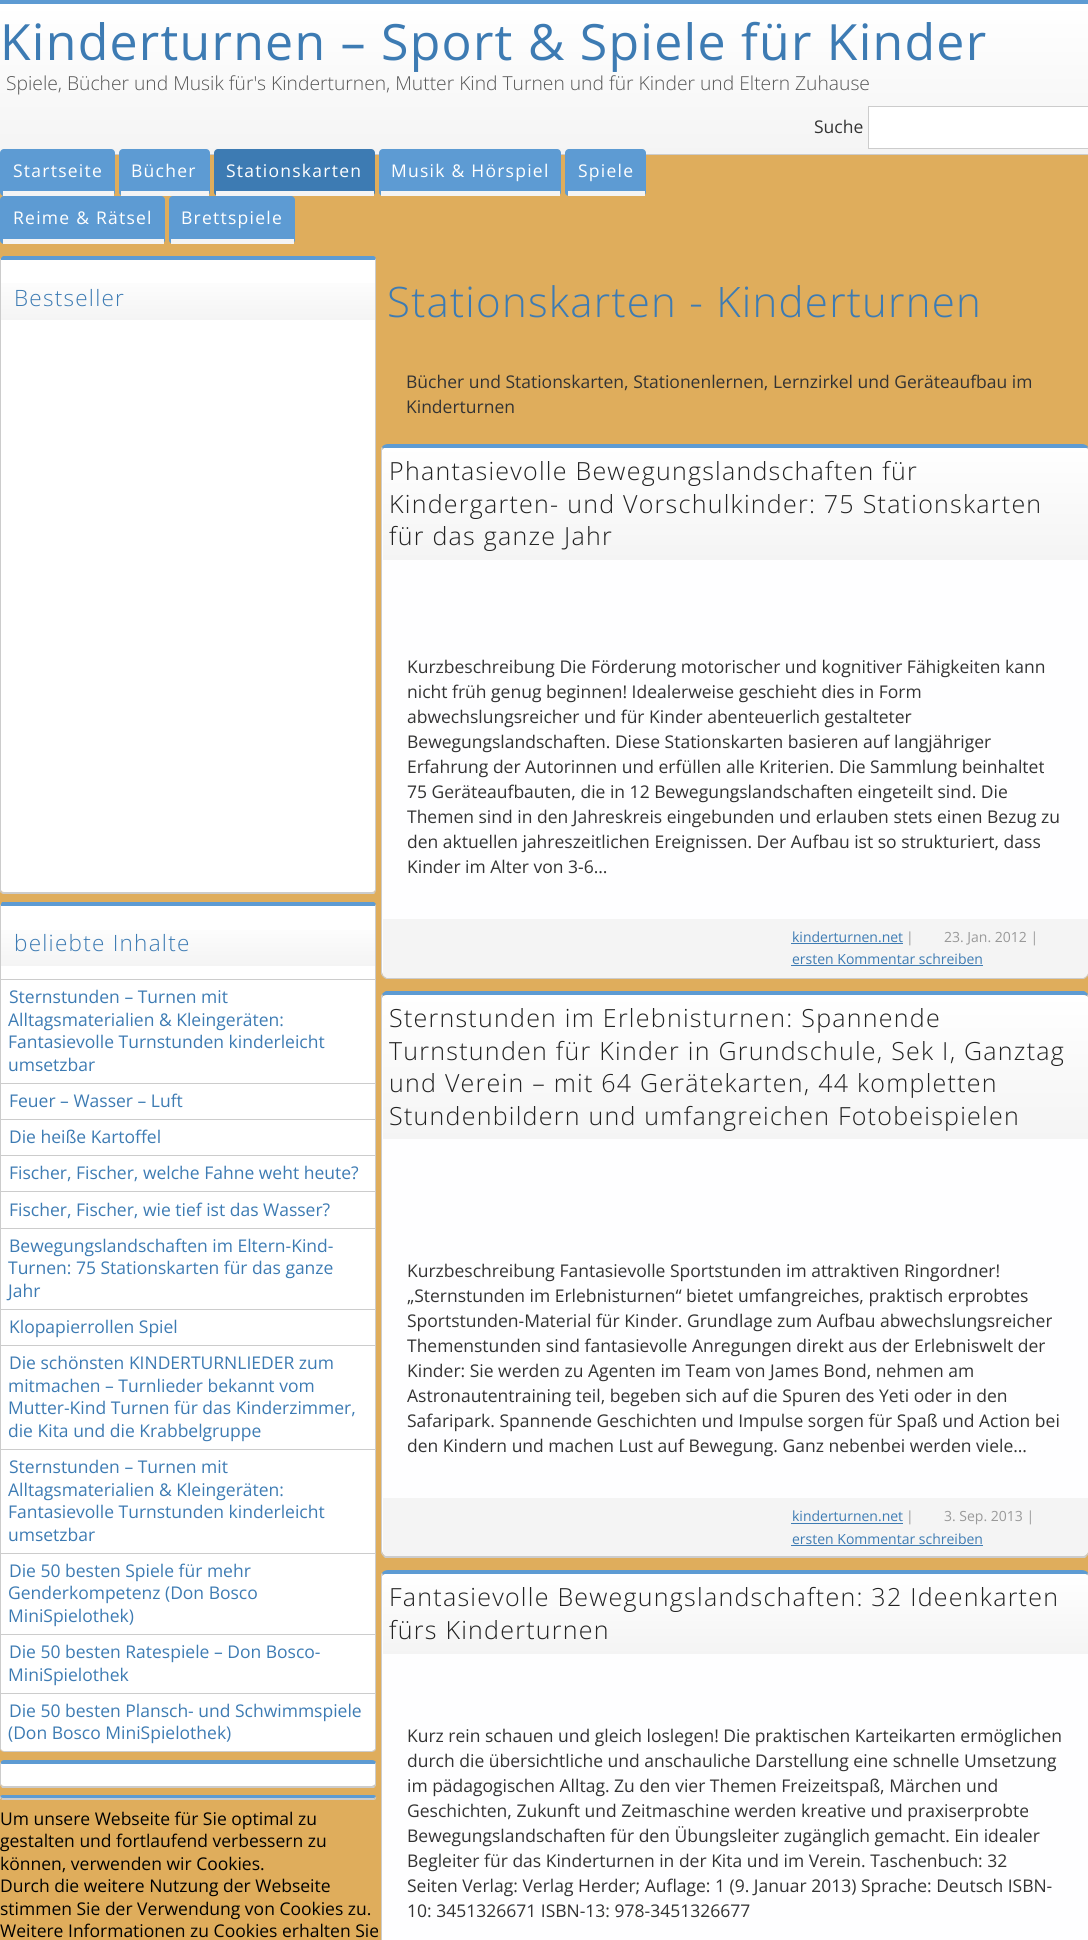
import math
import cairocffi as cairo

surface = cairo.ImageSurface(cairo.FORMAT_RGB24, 1088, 1940)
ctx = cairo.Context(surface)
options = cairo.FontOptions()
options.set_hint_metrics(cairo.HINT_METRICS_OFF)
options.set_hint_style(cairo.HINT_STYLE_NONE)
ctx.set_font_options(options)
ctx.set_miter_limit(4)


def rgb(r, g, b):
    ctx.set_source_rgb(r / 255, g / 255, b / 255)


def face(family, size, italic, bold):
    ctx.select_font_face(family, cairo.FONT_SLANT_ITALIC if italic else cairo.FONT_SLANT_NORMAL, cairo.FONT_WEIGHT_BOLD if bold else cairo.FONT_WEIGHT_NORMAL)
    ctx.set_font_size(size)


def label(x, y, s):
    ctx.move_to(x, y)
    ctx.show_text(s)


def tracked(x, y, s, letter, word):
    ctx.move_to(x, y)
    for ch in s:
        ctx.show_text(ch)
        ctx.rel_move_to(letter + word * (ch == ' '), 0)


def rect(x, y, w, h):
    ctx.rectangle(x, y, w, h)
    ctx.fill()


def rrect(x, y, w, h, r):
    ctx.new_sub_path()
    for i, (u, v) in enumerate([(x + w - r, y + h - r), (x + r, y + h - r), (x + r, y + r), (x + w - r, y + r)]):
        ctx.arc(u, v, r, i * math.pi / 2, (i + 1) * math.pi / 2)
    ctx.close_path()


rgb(223, 173, 92)
ctx.paint()
gradient = cairo.LinearGradient(544, 3.7, 544, 154)
gradient.add_color_stop_rgba(0, 1, 1, 1, 1)
gradient.add_color_stop_rgba(1, 0.957, 0.957, 0.957, 1)
ctx.set_source(gradient)
rect(0, 4, 1088, 150)
rgb(93, 155, 211)
rect(0, 0, 1088, 4)
rgb(204, 204, 204)
rect(115, 154, 973, 1)
face('Open Sans', 50, 0, 0)
rgb(61, 123, 179)
tracked(0, 60, 'Kinderturnen – Sport & Spiele für Kinder', 1.25, 0)
face('Open Sans Light', 19.25, 0, 0)
rgb(85, 85, 85)
label(6, 90, 'Spiele, Bücher und Musik für\'s Kinderturnen, Mutter Kind Turnen und für Kinder und Eltern Zuhause')
face('Open Sans', 17.5, 0, 0)
rgb(51, 51, 51)
label(814, 133, 'Suche')
rgb(255, 255, 255)
ctx.rectangle(868.5, 106.5, 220, 42)
ctx.fill_preserve()
rgb(204, 204, 204)
ctx.set_line_width(1)
ctx.stroke()
rgb(93, 155, 211)
rrect(0, 149, 115, 47, 4)
ctx.fill()
rgb(244, 244, 244)
rect(3, 191, 111, 5)
rgb(255, 255, 255)
tracked(13, 177, 'Startseite', 1.25, 0)
rgb(93, 155, 211)
rrect(119, 149, 91, 47, 4)
ctx.fill()
rgb(244, 244, 244)
rect(121, 191, 88, 5)
rgb(255, 255, 255)
tracked(131, 177, 'Bücher', 1.25, 0)
rgb(61, 123, 179)
rrect(214, 149, 161, 47, 4)
ctx.fill()
rgb(244, 244, 244)
rect(216, 191, 158, 5)
rgb(255, 255, 255)
tracked(226, 177, 'Stationskarten', 1.25, 0)
rgb(93, 155, 211)
rrect(379, 149, 182, 47, 4)
ctx.fill()
rgb(244, 244, 244)
rect(381, 191, 179, 5)
rgb(255, 255, 255)
tracked(391, 177, 'Musik & Hörspiel', 1.25, 0)
rgb(93, 155, 211)
rrect(565, 149, 81, 47, 4)
ctx.fill()
rgb(244, 244, 244)
rect(568, 191, 77, 5)
rgb(255, 255, 255)
tracked(578, 177, 'Spiele', 1.25, 0)
rgb(93, 155, 211)
rrect(0, 196, 165, 48, 4)
ctx.fill()
rgb(244, 244, 244)
rect(3, 239, 161, 5)
rgb(255, 255, 255)
tracked(13, 224, 'Reime & Rätsel', 1.25, 0)
rgb(93, 155, 211)
rrect(169, 196, 126, 48, 4)
ctx.fill()
rgb(244, 244, 244)
rect(171, 239, 123, 5)
rgb(255, 255, 255)
tracked(181, 224, 'Brettspiele', 1.25, 0)
ctx.new_path()
ctx.move_to(4, 260)
ctx.line_to(375, 260)
ctx.line_to(375, 890)
ctx.curve_to(375, 891, 374, 892, 372, 892)
ctx.line_to(4, 892)
ctx.curve_to(2, 892, 1, 891, 1, 890)
ctx.line_to(1, 260)
ctx.close_path()
ctx.fill()
rgb(93, 155, 211)
ctx.new_path()
ctx.move_to(1, 258)
ctx.line_to(3, 256)
ctx.line_to(374, 256)
ctx.curve_to(375, 257, 375, 257, 376, 258)
ctx.line_to(375, 260)
ctx.line_to(1, 260)
ctx.close_path()
ctx.fill()
rgb(204, 204, 204)
ctx.new_path()
ctx.move_to(376, 258)
ctx.line_to(376, 260)
ctx.line_to(376, 890)
ctx.line_to(375, 893)
ctx.line_to(374, 892)
ctx.line_to(375, 890)
ctx.line_to(375, 260)
ctx.close_path()
ctx.fill()
ctx.new_path()
ctx.move_to(3, 894)
ctx.line_to(1, 893)
ctx.line_to(2, 892)
ctx.line_to(4, 892)
ctx.line_to(372, 892)
ctx.line_to(374, 892)
ctx.line_to(375, 893)
ctx.line_to(374, 894)
ctx.close_path()
ctx.fill()
ctx.new_path()
ctx.move_to(0, 260)
ctx.line_to(0, 890)
ctx.curve_to(0, 891, 0, 892, 1, 893)
ctx.line_to(2, 892)
ctx.line_to(1, 890)
ctx.line_to(1, 260)
ctx.line_to(1, 258)
ctx.close_path()
ctx.fill()
gradient = cairo.LinearGradient(188, 272, 188, 320)
gradient.add_color_stop_rgba(0, 1, 1, 1, 1)
gradient.add_color_stop_rgba(1, 0.957, 0.957, 0.957, 1)
ctx.set_source(gradient)
rect(1, 283, 374, 37)
face('Open Sans Light', 22.5, 0, 0)
rgb(61, 123, 179)
tracked(14, 306, 'Bestseller', 1.25, 0)
rgb(255, 255, 255)
ctx.new_path()
ctx.move_to(4, 906)
ctx.line_to(375, 906)
ctx.line_to(375, 1749)
ctx.curve_to(375, 1750, 374, 1751, 372, 1751)
ctx.line_to(4, 1751)
ctx.curve_to(2, 1751, 1, 1750, 1, 1749)
ctx.line_to(1, 906)
ctx.close_path()
ctx.fill()
rgb(93, 155, 211)
ctx.new_path()
ctx.move_to(1, 904)
ctx.line_to(2, 902)
ctx.line_to(374, 902)
ctx.line_to(376, 904)
ctx.line_to(375, 906)
ctx.line_to(1, 906)
ctx.close_path()
ctx.fill()
rgb(204, 204, 204)
ctx.new_path()
ctx.move_to(376, 904)
ctx.line_to(376, 1749)
ctx.line_to(375, 1751)
ctx.line_to(374, 1750)
ctx.line_to(375, 1749)
ctx.line_to(375, 906)
ctx.close_path()
ctx.fill()
ctx.new_path()
ctx.move_to(375, 1751)
ctx.line_to(372, 1752)
ctx.line_to(4, 1752)
ctx.line_to(1, 1751)
ctx.line_to(2, 1751)
ctx.line_to(4, 1751)
ctx.line_to(372, 1751)
ctx.line_to(374, 1750)
ctx.close_path()
ctx.fill()
ctx.new_path()
ctx.move_to(0, 906)
ctx.line_to(0, 1749)
ctx.line_to(1, 1751)
ctx.line_to(2, 1751)
ctx.line_to(1, 1749)
ctx.line_to(1, 906)
ctx.line_to(1, 904)
ctx.close_path()
ctx.fill()
gradient = cairo.LinearGradient(188, 919, 188, 966)
gradient.add_color_stop_rgba(0, 1, 1, 1, 1)
gradient.add_color_stop_rgba(1, 0.957, 0.957, 0.957, 1)
ctx.set_source(gradient)
rect(1, 930, 374, 36)
rgb(61, 123, 179)
tracked(14, 951, 'beliebte Inhalte', 1.25, 0)
rgb(204, 204, 204)
rect(1, 979, 374, 1)
face('Open Sans', 17.5, 0, 0)
rgb(61, 123, 179)
label(9, 1003, 'Sternstunden – Turnen mit')
label(8, 1026, 'Alltagsmaterialien & Kleingeräten:')
label(8, 1048, 'Fantasievolle Turnstunden kinderleicht')
label(8, 1071, 'umsetzbar')
rgb(204, 204, 204)
rect(1, 1083, 374, 1)
rgb(61, 123, 179)
label(9, 1107, 'Feuer – Wasser – Luft')
rgb(204, 204, 204)
rect(1, 1119, 374, 1)
rgb(61, 123, 179)
label(9, 1143, 'Die heiße Kartoffel')
rgb(204, 204, 204)
rect(1, 1155, 374, 1)
rgb(61, 123, 179)
label(9, 1179, 'Fischer, Fischer, welche Fahne weht heute?')
rgb(204, 204, 204)
rect(1, 1191, 374, 1)
rgb(61, 123, 179)
label(9, 1216, 'Fischer, Fischer, wie tief ist das Wasser?')
rgb(204, 204, 204)
rect(1, 1228, 374, 1)
rgb(61, 123, 179)
label(9, 1252, 'Bewegungslandschaften im Eltern-Kind-')
label(8, 1274, 'Turnen: 75 Stationskarten für das ganze')
label(8, 1297, 'Jahr')
rgb(204, 204, 204)
rect(1, 1309, 374, 1)
rgb(61, 123, 179)
label(9, 1333, 'Klopapierrollen Spiel')
rgb(204, 204, 204)
rect(1, 1345, 374, 1)
rgb(61, 123, 179)
label(9, 1369, 'Die schönsten KINDERTURNLIEDER zum')
label(8, 1392, 'mitmachen – Turnlieder bekannt vom')
label(8, 1414, 'Mutter-Kind Turnen für das Kinderzimmer,')
label(8, 1437, 'die Kita und die Krabbelgruppe')
rgb(204, 204, 204)
rect(1, 1449, 374, 1)
rgb(61, 123, 179)
label(9, 1473, 'Sternstunden – Turnen mit')
label(8, 1496, 'Alltagsmaterialien & Kleingeräten:')
label(8, 1518, 'Fantasievolle Turnstunden kinderleicht')
label(8, 1541, 'umsetzbar')
rgb(204, 204, 204)
rect(1, 1553, 374, 1)
rgb(61, 123, 179)
label(9, 1577, 'Die 50 besten Spiele für mehr')
label(8, 1599, 'Genderkompetenz (Don Bosco')
label(8, 1622, 'MiniSpielothek)')
rgb(204, 204, 204)
rect(1, 1634, 374, 1)
rgb(61, 123, 179)
label(9, 1658, 'Die 50 besten Ratespiele – Don Bosco-')
label(8, 1681, 'MiniSpielothek')
rgb(204, 204, 204)
rect(1, 1693, 374, 1)
rgb(61, 123, 179)
label(9, 1717, 'Die 50 besten Plansch- und Schwimmspiele')
label(8, 1739, '(Don Bosco MiniSpielothek)')
rgb(255, 255, 255)
ctx.new_path()
ctx.move_to(4, 1764)
ctx.line_to(375, 1764)
ctx.line_to(375, 1784)
ctx.curve_to(375, 1785, 374, 1786, 372, 1786)
ctx.line_to(4, 1786)
ctx.curve_to(2, 1786, 1, 1785, 1, 1784)
ctx.line_to(1, 1764)
ctx.close_path()
ctx.fill()
rgb(93, 155, 211)
ctx.new_path()
ctx.move_to(4, 1760)
ctx.curve_to(3, 1760, 1, 1761, 1, 1762)
ctx.line_to(1, 1764)
ctx.line_to(375, 1764)
ctx.line_to(376, 1762)
ctx.curve_to(375, 1761, 374, 1760, 372, 1760)
ctx.close_path()
ctx.fill()
rgb(204, 204, 204)
ctx.new_path()
ctx.move_to(375.5, 1762)
ctx.line_to(376, 1764)
ctx.line_to(376, 1784)
ctx.curve_to(376, 1785, 376, 1786, 375.5, 1786.5)
ctx.line_to(374, 1785.5)
ctx.curve_to(374.5, 1785, 375, 1784.5, 375, 1784)
ctx.line_to(375, 1764)
ctx.close_path()
ctx.fill()
ctx.new_path()
ctx.move_to(2, 1788)
ctx.line_to(1, 1786)
ctx.line_to(2, 1786)
ctx.line_to(4, 1786)
ctx.line_to(372, 1786)
ctx.line_to(374, 1785)
ctx.line_to(375, 1787)
ctx.line_to(374, 1788)
ctx.close_path()
ctx.fill()
ctx.new_path()
ctx.move_to(0, 1764)
ctx.line_to(0, 1784)
ctx.curve_to(0, 1785, 0.5, 1786, 1, 1786.5)
ctx.line_to(2, 1785.5)
ctx.curve_to(1.5, 1785, 1, 1784.5, 1, 1784)
ctx.line_to(1, 1764)
ctx.line_to(1.5, 1764)
ctx.line_to(0.5, 1762)
ctx.close_path()
ctx.fill()
rgb(93, 155, 211)
ctx.new_path()
ctx.move_to(2, 1795)
ctx.line_to(0, 1796)
ctx.line_to(1, 1798)
ctx.line_to(375, 1798)
ctx.line_to(376, 1796)
ctx.line_to(374, 1795)
ctx.close_path()
ctx.fill()
rgb(204, 204, 204)
ctx.new_path()
ctx.move_to(376, 1798.5)
ctx.line_to(375.5, 1799)
ctx.line_to(375, 1799)
ctx.line_to(375, 1798)
ctx.line_to(374.5, 1798.5)
ctx.line_to(374, 1797.5)
ctx.line_to(375.5, 1797.5)
ctx.line_to(376, 1796)
ctx.curve_to(376.5, 1797, 376, 1797.5, 376, 1798.5)
ctx.close_path()
ctx.fill()
ctx.new_path()
ctx.move_to(2, 1799)
ctx.line_to(1, 1799)
ctx.line_to(2, 1800)
ctx.line_to(374, 1800)
ctx.line_to(376, 1799)
ctx.line_to(375, 1799)
ctx.line_to(374, 1799)
ctx.line_to(375, 1798)
ctx.line_to(374, 1798)
ctx.line_to(2, 1798)
ctx.close_path()
ctx.fill()
ctx.new_path()
ctx.move_to(0, 1796.5)
ctx.line_to(0.5, 1796)
ctx.line_to(1, 1797.5)
ctx.line_to(2.5, 1797.5)
ctx.line_to(1.5, 1798.5)
ctx.line_to(1, 1798)
ctx.line_to(1, 1799)
ctx.line_to(0.5, 1799.5)
ctx.curve_to(-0.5, 1798.5, 0, 1797.5, 0, 1796.5)
ctx.close_path()
ctx.fill()
face('Open Sans Light', 42, 0, 0)
rgb(61, 123, 179)
tracked(387, 317, 'Stationskarten - Kinderturnen', 1.25, 0)
face('Open Sans', 17.5, 0, 0)
rgb(51, 51, 51)
label(406, 388, 'Bücher und Stationskarten, Stationenlernen, Lernzirkel und Geräteaufbau im')
label(406, 413, 'Kinderturnen')
rgb(254, 254, 255)
ctx.new_path()
ctx.move_to(388, 448)
ctx.line_to(1082, 448)
ctx.curve_to(1085, 448, 1088, 449, 1088, 450)
ctx.line_to(1088, 972)
ctx.curve_to(1088, 975, 1085, 978, 1082, 978)
ctx.line_to(388, 978)
ctx.curve_to(385, 978, 382, 975, 382, 972)
ctx.line_to(382, 450)
ctx.curve_to(382, 449, 385, 448, 388, 448)
ctx.close_path()
ctx.fill()
rgb(93, 155, 211)
ctx.new_path()
ctx.move_to(388, 444)
ctx.curve_to(386, 444, 383, 445, 382, 447)
ctx.line_to(383, 449)
ctx.curve_to(384, 448, 386, 448, 388, 448)
ctx.line_to(1082, 448)
ctx.curve_to(1084, 448, 1086, 448, 1087, 449)
ctx.line_to(1088, 447)
ctx.curve_to(1087, 445, 1084, 444, 1082, 444)
ctx.close_path()
ctx.fill()
rgb(204, 204, 204)
ctx.new_path()
ctx.move_to(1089, 974)
ctx.line_to(1087, 977)
ctx.line_to(1086, 976)
ctx.curve_to(1087, 975, 1088, 974, 1088, 972)
ctx.line_to(1088, 450)
ctx.line_to(1087, 449)
ctx.line_to(1088, 447)
ctx.line_to(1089, 448)
ctx.close_path()
ctx.fill()
ctx.new_path()
ctx.move_to(386, 979)
ctx.line_to(383, 977)
ctx.line_to(384, 976)
ctx.curve_to(385, 977, 386, 978, 388, 978)
ctx.line_to(1082, 978)
ctx.curve_to(1084, 978, 1085, 977, 1086, 976)
ctx.line_to(1087, 977)
ctx.line_to(1084, 979)
ctx.close_path()
ctx.fill()
ctx.new_path()
ctx.move_to(381, 448)
ctx.line_to(382, 447)
ctx.line_to(383, 449)
ctx.line_to(382, 450)
ctx.line_to(382, 972)
ctx.curve_to(382, 974, 383, 975, 384, 976)
ctx.line_to(383, 977)
ctx.line_to(381, 974)
ctx.close_path()
ctx.fill()
gradient = cairo.LinearGradient(735, 447, 735, 560)
gradient.add_color_stop_rgba(0, 1, 1, 1, 1)
gradient.add_color_stop_rgba(1, 0.957, 0.957, 0.957, 1)
ctx.set_source(gradient)
ctx.new_path()
ctx.move_to(383, 449)
ctx.line_to(384, 448)
ctx.line_to(1086, 448)
ctx.curve_to(1087, 448, 1088, 449, 1088, 450)
ctx.line_to(1088, 560)
ctx.line_to(383, 560)
ctx.close_path()
ctx.fill()
face('Open Sans Light', 25, 0, 0)
rgb(34, 34, 34)
tracked(389, 480, 'Phantasievolle Bewegungslandschaften für', 1.25, 0)
tracked(389, 513, 'Kindergarten- und Vorschulkinder: 75 Stationskarten', 1.25, 0)
tracked(389, 545, 'für das ganze Jahr', 1.25, 0)
face('Open Sans', 17.5, 0, 0)
rgb(51, 51, 51)
label(407, 673, 'Kurzbeschreibung Die Förderung motorischer und kognitiver Fähigkeiten kann')
label(407, 698, 'nicht früh genug beginnen! Idealerweise geschieht dies in Form')
label(407, 723, 'abwechslungsreicher und für Kinder abenteuerlich gestalteter')
label(407, 748, 'Bewegungslandschaften. Diese Stationskarten basieren auf langjähriger')
label(407, 773, 'Erfahrung der Autorinnen und erfüllen alle Kriterien. Die Sammlung beinhaltet')
label(407, 798, '75 Geräteaufbauten, die in 12 Bewegungslandschaften eingeteilt sind. Die')
label(407, 823, 'Themen sind in den Jahreskreis eingebunden und erlauben stets einen Bezug zu')
label(407, 848, 'den aktuellen jahreszeitlichen Ereignissen. Der Aufbau ist so strukturiert, dass')
label(407, 873, 'Kinder im Alter von 3-6…')
rgb(244, 244, 244)
ctx.new_path()
ctx.move_to(383, 919)
ctx.line_to(1088, 919)
ctx.line_to(1088, 972)
ctx.curve_to(1088, 975, 1085, 978, 1082, 978)
ctx.line_to(388, 978)
ctx.curve_to(386, 978, 384, 976, 383, 975)
ctx.close_path()
ctx.fill()
face('Open Sans', 14, 0, 0)
rgb(61, 123, 179)
label(792, 942, 'kinderturnen.net')
rect(791, 943, 112, 1)
rgb(153, 153, 153)
label(906, 942, '|')
label(944, 942, '23. Jan. 2012 |')
rgb(61, 123, 179)
label(792, 964, 'ersten Kommentar schreiben')
rect(791, 965, 192, 1)
rgb(254, 254, 255)
ctx.new_path()
ctx.move_to(388, 995)
ctx.line_to(1082, 995)
ctx.curve_to(1085, 995, 1088, 996, 1088, 998)
ctx.line_to(1088, 1551)
ctx.curve_to(1088, 1554, 1085, 1556, 1082, 1556)
ctx.line_to(388, 1556)
ctx.curve_to(385, 1556, 382, 1554, 382, 1551)
ctx.line_to(382, 998)
ctx.curve_to(382, 996, 385, 995, 388, 995)
ctx.close_path()
ctx.fill()
rgb(93, 155, 211)
ctx.new_path()
ctx.move_to(388, 995)
ctx.curve_to(386, 995, 384, 995, 383, 996)
ctx.line_to(382, 994)
ctx.curve_to(383, 993, 384, 992, 386, 991)
ctx.line_to(1084, 991)
ctx.curve_to(1086, 992, 1087, 993, 1088, 994)
ctx.line_to(1087, 996)
ctx.curve_to(1086, 995, 1084, 995, 1082, 995)
ctx.close_path()
ctx.fill()
rgb(204, 204, 204)
ctx.new_path()
ctx.move_to(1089, 1553)
ctx.line_to(1087, 1556)
ctx.line_to(1086, 1555)
ctx.curve_to(1087, 1554, 1088, 1553, 1088, 1551)
ctx.line_to(1088, 998)
ctx.line_to(1087, 996)
ctx.line_to(1088, 994)
ctx.line_to(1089, 996)
ctx.close_path()
ctx.fill()
ctx.new_path()
ctx.move_to(385, 1558)
ctx.line_to(383, 1556)
ctx.line_to(384, 1555)
ctx.line_to(388, 1556)
ctx.line_to(1082, 1556)
ctx.line_to(1086, 1555)
ctx.line_to(1087, 1556)
ctx.line_to(1085, 1558)
ctx.close_path()
ctx.fill()
ctx.new_path()
ctx.move_to(381, 996)
ctx.line_to(382, 994)
ctx.line_to(383, 996)
ctx.line_to(382, 998)
ctx.line_to(382, 1551)
ctx.curve_to(382, 1553, 383, 1554, 384, 1555)
ctx.line_to(383, 1556)
ctx.line_to(381, 1553)
ctx.close_path()
ctx.fill()
gradient = cairo.LinearGradient(735, 995, 735, 1139)
gradient.add_color_stop_rgba(0, 1, 1, 1, 1)
gradient.add_color_stop_rgba(1, 0.957, 0.957, 0.957, 1)
ctx.set_source(gradient)
ctx.new_path()
ctx.move_to(388, 995)
ctx.curve_to(386, 995, 384, 996, 383, 996)
ctx.line_to(383, 1139)
ctx.line_to(1088, 1139)
ctx.line_to(1088, 998)
ctx.curve_to(1088, 996, 1085, 995, 1082, 995)
ctx.close_path()
ctx.fill()
face('Open Sans Light', 25, 0, 0)
rgb(34, 34, 34)
tracked(389, 1027, 'Sternstunden im Erlebnisturnen: Spannende', 1.25, 0)
tracked(389, 1060, 'Turnstunden für Kinder in Grundschule, Sek I, Ganztag', 1.25, 0)
tracked(389, 1092, 'und Verein – mit 64 Gerätekarten, 44 kompletten', 1.25, 0)
tracked(389, 1125, 'Stundenbildern und umfangreichen Fotobeispielen', 1.25, 0)
face('Open Sans', 17.5, 0, 0)
rgb(51, 51, 51)
label(407, 1277, 'Kurzbeschreibung Fantasievolle Sportstunden im attraktiven Ringordner!')
label(407, 1302, '„Sternstunden im Erlebnisturnen“ bietet umfangreiches, praktisch erprobtes')
label(407, 1327, 'Sportstunden-Material für Kinder. Grundlage zum Aufbau abwechslungsreicher')
label(407, 1352, 'Themenstunden sind fantasievolle Anregungen direkt aus der Erlebniswelt der')
label(407, 1377, 'Kinder: Sie werden zu Agenten im Team von James Bond, nehmen am')
label(407, 1402, 'Astronautentraining teil, begeben sich auf die Spuren des Yeti oder in den')
label(407, 1427, 'Safaripark. Spannende Geschichten und Impulse sorgen für Spaß und Action bei')
label(407, 1452, 'den Kindern und machen Lust auf Bewegung. Ganz nebenbei werden viele…')
rgb(244, 244, 244)
ctx.new_path()
ctx.move_to(383, 1498)
ctx.line_to(1088, 1498)
ctx.line_to(1088, 1551)
ctx.curve_to(1088, 1553, 1086, 1555, 1084, 1556)
ctx.line_to(386, 1556)
ctx.curve_to(385, 1556, 384, 1555, 383, 1553)
ctx.close_path()
ctx.fill()
face('Open Sans', 14, 0, 0)
rgb(61, 123, 179)
label(792, 1521, 'kinderturnen.net')
rect(791, 1523, 112, 1)
rgb(153, 153, 153)
label(906, 1521, '|')
label(944, 1521, '3. Sep. 2013 |')
rgb(61, 123, 179)
label(792, 1544, 'ersten Kommentar schreiben')
rect(791, 1545, 192, 1)
rgb(254, 254, 255)
ctx.new_path()
ctx.move_to(388, 1574)
ctx.line_to(1082, 1574)
ctx.curve_to(1085, 1574, 1088, 1575, 1088, 1576)
ctx.line_to(1088, 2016)
ctx.curve_to(1088, 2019, 1085, 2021, 1082, 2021)
ctx.line_to(388, 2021)
ctx.curve_to(385, 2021, 382, 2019, 382, 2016)
ctx.line_to(382, 1576)
ctx.curve_to(382, 1575, 385, 1574, 388, 1574)
ctx.close_path()
ctx.fill()
rgb(93, 155, 211)
ctx.new_path()
ctx.move_to(388, 1570)
ctx.curve_to(386, 1570, 383, 1571, 382, 1573)
ctx.line_to(383, 1575)
ctx.curve_to(384, 1574, 386, 1574, 388, 1574)
ctx.line_to(1082, 1574)
ctx.curve_to(1084, 1574, 1086, 1574, 1087, 1575)
ctx.line_to(1088, 1573)
ctx.curve_to(1087, 1571, 1084, 1570, 1082, 1570)
ctx.close_path()
ctx.fill()
rgb(204, 204, 204)
ctx.new_path()
ctx.move_to(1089, 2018)
ctx.line_to(1087, 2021)
ctx.line_to(1086, 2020)
ctx.curve_to(1087, 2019, 1088, 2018, 1088, 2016)
ctx.line_to(1088, 1576)
ctx.line_to(1087, 1575)
ctx.line_to(1088, 1573)
ctx.line_to(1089, 1574)
ctx.close_path()
ctx.fill()
ctx.new_path()
ctx.move_to(381, 1574)
ctx.line_to(382, 1573)
ctx.line_to(383, 1575)
ctx.line_to(382, 1576)
ctx.line_to(382, 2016)
ctx.curve_to(382, 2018, 383, 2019, 384, 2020)
ctx.line_to(383, 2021)
ctx.curve_to(382, 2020, 382, 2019, 381, 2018)
ctx.close_path()
ctx.fill()
gradient = cairo.LinearGradient(735, 1574, 735, 1654)
gradient.add_color_stop_rgba(0, 1, 1, 1, 1)
gradient.add_color_stop_rgba(1, 0.957, 0.957, 0.957, 1)
ctx.set_source(gradient)
ctx.new_path()
ctx.move_to(383, 1575)
ctx.line_to(385, 1574)
ctx.line_to(1085, 1574)
ctx.curve_to(1086, 1574, 1088, 1575, 1088, 1576)
ctx.line_to(1088, 1654)
ctx.line_to(383, 1654)
ctx.close_path()
ctx.fill()
face('Open Sans Light', 25, 0, 0)
rgb(34, 34, 34)
tracked(389, 1606, 'Fantasievolle Bewegungslandschaften: 32 Ideenkarten', 1.25, 0)
tracked(389, 1639, 'fürs Kinderturnen', 1.25, 0)
face('Open Sans', 17.5, 0, 0)
rgb(51, 51, 51)
label(407, 1742, 'Kurz rein schauen und gleich loslegen! Die praktischen Karteikarten ermöglichen')
label(407, 1767, 'durch die übersichtliche und anschauliche Darstellung eine schnelle Umsetzung')
label(407, 1792, 'im pädagogischen Alltag. Zu den vier Themen Freizeitspaß, Märchen und')
label(407, 1817, 'Geschichten, Zukunft und Zeitmaschine werden kreative und praxiserprobte')
label(407, 1842, 'Bewegungslandschaften für den Übungsleiter zugänglich gemacht. Ein idealer')
label(407, 1867, 'Begleiter für das Kinderturnen in der Kita und im Verein. Taschenbuch: 32')
label(407, 1892, 'Seiten Verlag: Verlag Herder; Auflage: 1 (9. Januar 2013) Sprache: Deutsch ISBN-')
label(407, 1917, '10: 3451326671 ISBN-13: 978-3451326677')
rgb(0, 0, 0)
label(0, 1825, 'Um unsere Webseite für Sie optimal zu')
label(0, 1847, 'gestalten und fortlaufend verbessern zu')
label(0, 1870, 'können, verwenden wir Cookies.')
label(0, 1892, 'Durch die weitere Nutzung der Webseite')
label(0, 1915, 'stimmen Sie der Verwendung von Cookies zu.')
label(0, 1937, 'Weitere Informationen zu Cookies erhalten Sie')
surface.write_to_png('render.png')
